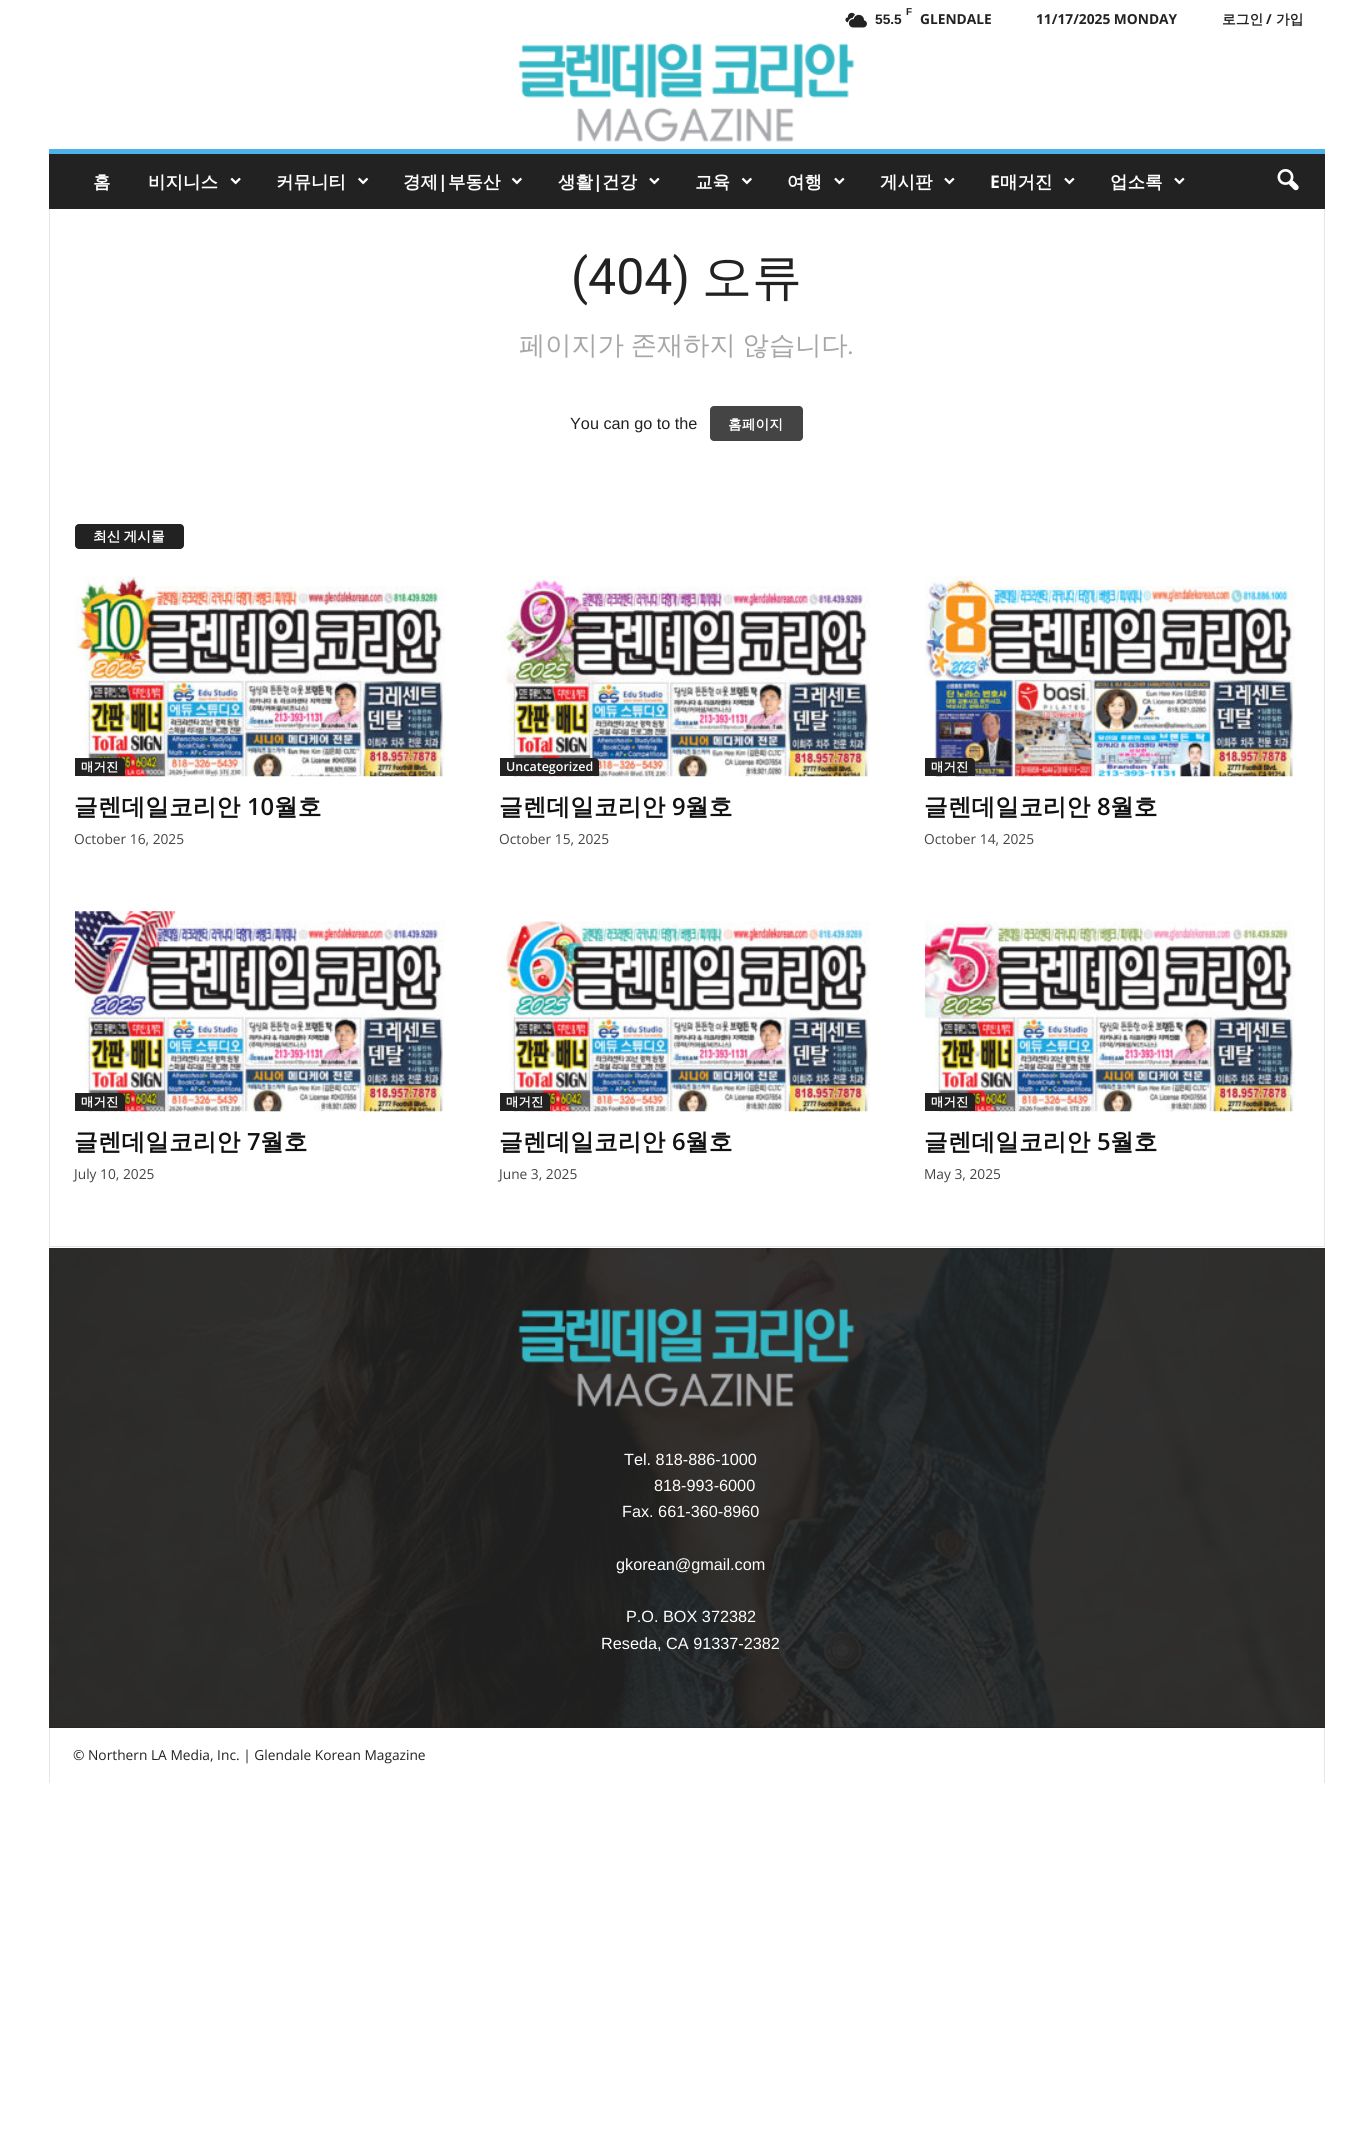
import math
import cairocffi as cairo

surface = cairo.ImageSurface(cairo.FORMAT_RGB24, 1372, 2141)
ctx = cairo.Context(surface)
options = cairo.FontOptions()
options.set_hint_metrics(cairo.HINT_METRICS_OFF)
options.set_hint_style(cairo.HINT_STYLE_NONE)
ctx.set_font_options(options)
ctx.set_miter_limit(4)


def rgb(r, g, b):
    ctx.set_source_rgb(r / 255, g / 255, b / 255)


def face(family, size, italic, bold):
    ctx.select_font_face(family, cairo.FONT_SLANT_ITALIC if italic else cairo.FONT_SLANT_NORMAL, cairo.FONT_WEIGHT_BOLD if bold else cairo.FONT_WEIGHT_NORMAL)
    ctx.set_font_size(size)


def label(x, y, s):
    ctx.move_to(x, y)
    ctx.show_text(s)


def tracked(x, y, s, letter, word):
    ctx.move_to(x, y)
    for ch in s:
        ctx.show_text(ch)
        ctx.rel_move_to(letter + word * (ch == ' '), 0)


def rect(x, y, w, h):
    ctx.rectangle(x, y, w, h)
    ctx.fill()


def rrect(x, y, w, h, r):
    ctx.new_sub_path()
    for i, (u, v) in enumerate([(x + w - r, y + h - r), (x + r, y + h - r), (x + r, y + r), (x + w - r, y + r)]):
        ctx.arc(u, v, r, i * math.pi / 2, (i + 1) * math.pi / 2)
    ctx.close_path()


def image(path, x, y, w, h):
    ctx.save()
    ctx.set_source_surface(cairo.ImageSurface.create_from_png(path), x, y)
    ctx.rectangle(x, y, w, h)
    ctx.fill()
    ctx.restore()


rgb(255, 255, 255)
ctx.paint()
image('image0.png', 845, 12, 22, 16)
face('Liberation Sans', 10, 0, 1)
rgb(34, 34, 34)
label(906, 15, 'F')
face('Liberation Sans', 13.75, 0, 1)
label(875, 24, '55.5')
face('Open Sans', 13.75, 0, 1)
label(920, 24, 'GLENDALE')
label(1036, 24, '11/17/2025 MONDAY')
face('WenQuanYi Zen Hei', 13.75, 0, 1)
label(1222, 24, '로그인')
face('Open Sans', 13.75, 0, 1)
label(1266, 24, '/')
face('WenQuanYi Zen Hei', 13.75, 0, 1)
label(1276, 24, '가입')
image('image1.png', 518, 43, 336, 99)
rect(49, 154, 1276, 55)
rgb(77, 178, 236)
rect(49, 149, 1276, 5)
face('WenQuanYi Zen Hei', 17.5, 0, 1)
rgb(255, 255, 255)
label(93, 188, '홈')
label(148, 188, '비지니스')
image('image2.png', 230, 177, 11, 8)
label(276, 188, '커뮤니티')
image('image3.png', 358, 177, 11, 8)
label(403, 188, '경제')
face('Open Sans', 17.5, 0, 1)
label(438, 188, '|')
face('WenQuanYi Zen Hei', 17.5, 0, 1)
label(448, 188, '부동산')
image('image4.png', 511, 177, 11, 8)
label(558, 188, '생활')
face('Open Sans', 17.5, 0, 1)
label(593, 188, '|')
face('WenQuanYi Zen Hei', 17.5, 0, 1)
label(602, 188, '건강')
image('image5.png', 649, 177, 11, 8)
label(695, 188, '교육')
image('image4.png', 741, 177, 11, 8)
label(787, 188, '여행')
image('image5.png', 834, 177, 11, 8)
label(880, 188, '게시판')
image('image5.png', 944, 177, 11, 8)
face('Open Sans', 17.5, 0, 1)
label(990, 188, 'E')
face('WenQuanYi Zen Hei', 17.5, 0, 1)
label(1000, 188, '매거진')
image('image5.png', 1064, 177, 11, 8)
label(1110, 188, '업소록')
image('image5.png', 1174, 177, 11, 8)
image('image6.png', 1277, 169, 22, 22)
rgb(230, 230, 230)
rect(49, 1246, 1276, 1)
rect(49, 209, 1, 1037)
face('Roboto', 50, 0, 0)
rgb(34, 34, 34)
label(571, 294, '(404)')
face('WenQuanYi Zen Hei Medium', 50, 0, 0)
label(702, 294, '오류')
face('WenQuanYi Zen Hei Medium', 26.25, 0, 0)
rgb(166, 166, 166)
tracked(519, 354, '페이지가 존재하지 않습니다', 0, -1)
face('Roboto', 26.25, 0, 0)
label(847, 354, '.')
face('Liberation Sans', 16.25, 0, 0)
rgb(34, 34, 34)
label(570, 429, 'You can go to the')
rgb(68, 68, 68)
rrect(710, 406, 93, 35, 4)
ctx.fill()
face('WenQuanYi Zen Hei', 13.75, 0, 1)
rgb(255, 255, 255)
label(728, 429, '홈페이지')
rgb(34, 34, 34)
rrect(75, 524, 109, 25, 4)
ctx.fill()
rgb(255, 255, 255)
tracked(93, 541, '최신 게시물', 0, -1)
image('image7.png', 75, 576, 370, 201)
rgb(34, 34, 34)
ctx.new_path()
ctx.move_to(75, 758)
ctx.line_to(121, 758)
ctx.curve_to(123, 758, 125, 760, 125, 762)
ctx.line_to(125, 776)
ctx.line_to(75, 776)
ctx.close_path()
ctx.fill()
face('WenQuanYi Zen Hei', 12.5, 0, 1)
rgb(255, 255, 255)
label(81, 771, '매거진')
face('WenQuanYi Zen Hei', 23.75, 0, 1)
rgb(17, 17, 17)
label(74, 815, '글렌데일코리안')
face('Open Sans SemiBold', 23.75, 0, 0)
label(247, 815, '10')
face('WenQuanYi Zen Hei', 23.75, 0, 1)
label(274, 815, '월호')
face('Open Sans', 13.75, 0, 0)
rgb(68, 68, 68)
label(74, 844, 'October 16, 2025')
image('image8.png', 500, 576, 370, 201)
rgb(34, 34, 34)
ctx.new_path()
ctx.move_to(500, 758)
ctx.line_to(595, 758)
ctx.curve_to(597, 758, 599, 760, 599, 762)
ctx.line_to(599, 776)
ctx.line_to(500, 776)
ctx.close_path()
ctx.fill()
face('Open Sans SemiBold', 12.5, 0, 0)
rgb(255, 255, 255)
label(506, 771, 'Uncategorized')
face('WenQuanYi Zen Hei', 23.75, 0, 1)
rgb(17, 17, 17)
label(499, 815, '글렌데일코리안')
face('Open Sans SemiBold', 23.75, 0, 0)
label(672, 815, '9')
face('WenQuanYi Zen Hei', 23.75, 0, 1)
label(685, 815, '월호')
face('Open Sans', 13.75, 0, 0)
rgb(68, 68, 68)
label(499, 844, 'October 15, 2025')
image('image9.png', 925, 576, 370, 201)
rgb(34, 34, 34)
ctx.new_path()
ctx.move_to(925, 758)
ctx.line_to(971, 758)
ctx.curve_to(973, 758, 975, 760, 975, 762)
ctx.line_to(975, 776)
ctx.line_to(925, 776)
ctx.close_path()
ctx.fill()
face('WenQuanYi Zen Hei', 12.5, 0, 1)
rgb(255, 255, 255)
label(931, 771, '매거진')
face('WenQuanYi Zen Hei', 23.75, 0, 1)
rgb(17, 17, 17)
label(924, 815, '글렌데일코리안')
face('Open Sans SemiBold', 23.75, 0, 0)
label(1097, 815, '8')
face('WenQuanYi Zen Hei', 23.75, 0, 1)
label(1110, 815, '월호')
face('Open Sans', 13.75, 0, 0)
rgb(68, 68, 68)
label(924, 844, 'October 14, 2025')
image('image10.png', 75, 911, 370, 201)
rgb(34, 34, 34)
ctx.new_path()
ctx.move_to(75, 1093)
ctx.line_to(121, 1093)
ctx.curve_to(123, 1093, 125, 1095, 125, 1097)
ctx.line_to(125, 1111)
ctx.line_to(75, 1111)
ctx.close_path()
ctx.fill()
face('WenQuanYi Zen Hei', 12.5, 0, 1)
rgb(255, 255, 255)
label(81, 1106, '매거진')
face('WenQuanYi Zen Hei', 23.75, 0, 1)
rgb(17, 17, 17)
label(74, 1150, '글렌데일코리안')
face('Open Sans SemiBold', 23.75, 0, 0)
label(247, 1150, '7')
face('WenQuanYi Zen Hei', 23.75, 0, 1)
label(260, 1150, '월호')
face('Open Sans', 13.75, 0, 0)
rgb(68, 68, 68)
label(74, 1179, 'July 10, 2025')
image('image11.png', 500, 921, 370, 191)
rgb(34, 34, 34)
ctx.new_path()
ctx.move_to(500, 1093)
ctx.line_to(546, 1093)
ctx.curve_to(548, 1093, 550, 1095, 550, 1097)
ctx.line_to(550, 1111)
ctx.line_to(500, 1111)
ctx.close_path()
ctx.fill()
face('WenQuanYi Zen Hei', 12.5, 0, 1)
rgb(255, 255, 255)
label(506, 1106, '매거진')
face('WenQuanYi Zen Hei', 23.75, 0, 1)
rgb(17, 17, 17)
label(499, 1150, '글렌데일코리안')
face('Open Sans SemiBold', 23.75, 0, 0)
label(672, 1150, '6')
face('WenQuanYi Zen Hei', 23.75, 0, 1)
label(685, 1150, '월호')
face('Open Sans', 13.75, 0, 0)
rgb(68, 68, 68)
label(499, 1179, 'June 3, 2025')
image('image12.png', 925, 921, 370, 191)
rgb(34, 34, 34)
ctx.new_path()
ctx.move_to(925, 1093)
ctx.line_to(971, 1093)
ctx.curve_to(973, 1093, 975, 1095, 975, 1097)
ctx.line_to(975, 1111)
ctx.line_to(925, 1111)
ctx.close_path()
ctx.fill()
face('WenQuanYi Zen Hei', 12.5, 0, 1)
rgb(255, 255, 255)
label(931, 1106, '매거진')
face('WenQuanYi Zen Hei', 23.75, 0, 1)
rgb(17, 17, 17)
label(924, 1150, '글렌데일코리안')
face('Open Sans SemiBold', 23.75, 0, 0)
label(1097, 1150, '5')
face('WenQuanYi Zen Hei', 23.75, 0, 1)
label(1110, 1150, '월호')
face('Open Sans', 13.75, 0, 0)
rgb(68, 68, 68)
label(924, 1179, 'May 3, 2025')
rgb(230, 230, 230)
rect(1324, 209, 1, 1037)
rgb(34, 34, 34)
rect(49, 1248, 1276, 480)
image('image13.png', 49, 1248, 1276, 480)
image('image14.png', 518, 1308, 336, 99)
face('Liberation Sans', 16.25, 0, 0)
rgb(255, 255, 255)
label(624, 1465, 'Tel. 818-886-1000')
label(654, 1491, '818-993-6000')
label(622, 1517, 'Fax. 661-360-8960')
label(616, 1570, 'gkorean@gmail.com')
label(626, 1622, 'P.O. BOX 372382')
label(601, 1649, 'Reseda, CA 91337-2382')
rgb(230, 230, 230)
rect(49, 1728, 1, 55)
face('Open Sans', 13.75, 0, 0)
rgb(34, 34, 34)
label(73, 1760, '© Northern LA Media, Inc. | Glendale Korean Magazine')
rgb(230, 230, 230)
rect(1324, 1728, 1, 55)
surface.write_to_png('render.png')
